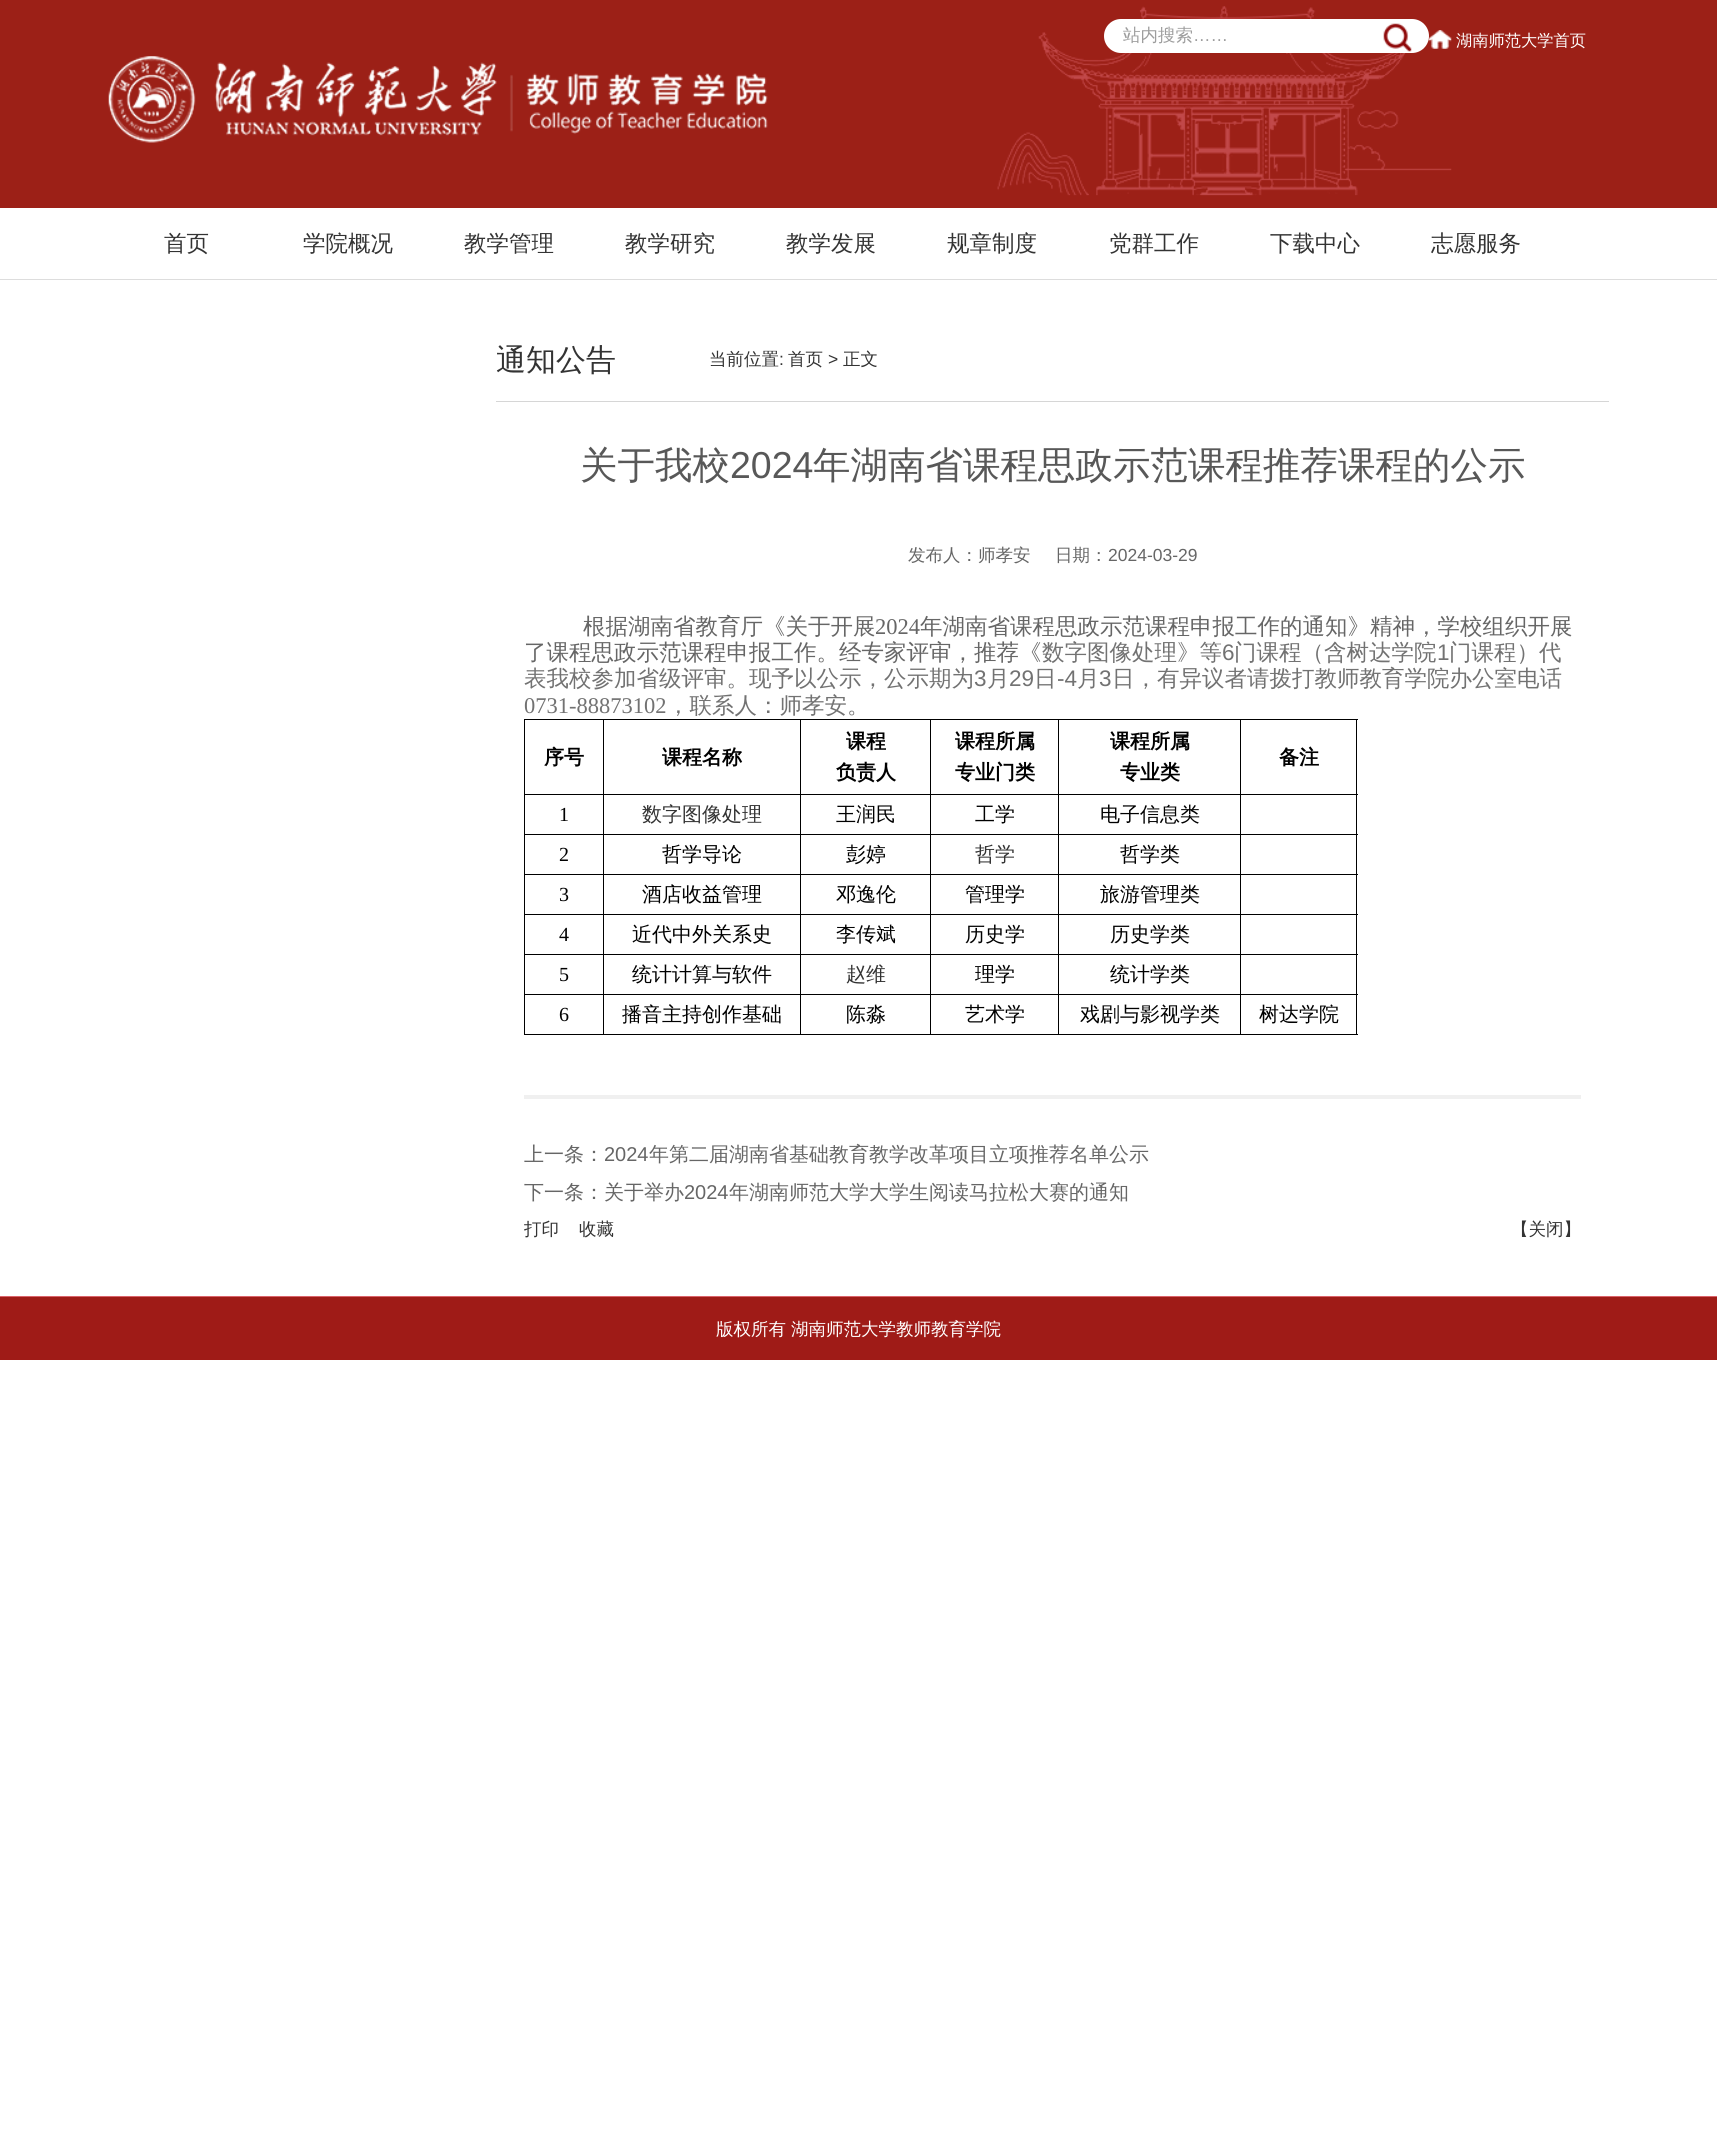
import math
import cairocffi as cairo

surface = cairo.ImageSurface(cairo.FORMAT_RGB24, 1717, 2144)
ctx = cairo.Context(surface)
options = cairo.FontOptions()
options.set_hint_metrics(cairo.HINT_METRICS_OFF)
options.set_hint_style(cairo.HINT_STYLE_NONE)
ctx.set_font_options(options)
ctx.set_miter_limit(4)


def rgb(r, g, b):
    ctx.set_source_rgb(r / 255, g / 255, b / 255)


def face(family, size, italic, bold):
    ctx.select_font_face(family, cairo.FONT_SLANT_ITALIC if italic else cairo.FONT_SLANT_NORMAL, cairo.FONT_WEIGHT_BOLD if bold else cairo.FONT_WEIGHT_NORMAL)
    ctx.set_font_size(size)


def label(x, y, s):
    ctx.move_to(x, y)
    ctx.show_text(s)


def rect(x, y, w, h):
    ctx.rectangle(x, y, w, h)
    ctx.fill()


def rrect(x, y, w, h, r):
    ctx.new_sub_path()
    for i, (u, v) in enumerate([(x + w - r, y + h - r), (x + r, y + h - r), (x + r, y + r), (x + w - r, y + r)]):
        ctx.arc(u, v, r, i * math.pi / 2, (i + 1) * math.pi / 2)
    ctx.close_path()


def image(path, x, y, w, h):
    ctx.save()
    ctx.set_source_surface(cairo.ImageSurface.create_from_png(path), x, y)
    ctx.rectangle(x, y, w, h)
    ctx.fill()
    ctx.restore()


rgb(255, 255, 255)
ctx.paint()
rgb(156, 32, 23)
rect(0, 0, 1717, 208)
image('image0.png', 997, 6, 455, 190)
image('image2.png', 1428, 30, 24, 19)
rgb(255, 255, 255)
rrect(1104, 19, 325, 34, 17)
ctx.fill()
face('WenQuanYi Zen Hei Medium', 17.5, 0, 0)
rgb(157, 157, 157)
label(1123, 41, '站内搜索')
face('Liberation Sans', 17.5, 0, 0)
label(1193, 41, '……')
image('image1.png', 1383, 23, 29, 29)
face('WenQuanYi Zen Hei Medium', 16.25, 0, 0)
rgb(255, 255, 255)
label(1456, 46, '湖南师范大学首页')
image('image3.png', 108, 56, 660, 87)
rgb(221, 221, 221)
rect(0, 279, 1717, 1)
face('WenQuanYi Zen Hei Medium', 22.5, 0, 0)
rgb(51, 51, 51)
label(164, 251, '首页')
label(303, 251, '学院概况')
label(464, 251, '教学管理')
label(625, 251, '教学研究')
label(786, 251, '教学发展')
label(947, 251, '规章制度')
label(1109, 251, '党群工作')
label(1270, 251, '下载中心')
label(1431, 251, '志愿服务')
rgb(214, 214, 214)
rect(496, 401, 1113, 1)
face('WenQuanYi Zen Hei Medium', 30, 0, 0)
rgb(51, 51, 51)
label(496, 370, '通知公告')
face('WenQuanYi Zen Hei Medium', 17.5, 0, 0)
label(709, 365, '当前位置')
face('Liberation Sans', 17.5, 0, 0)
label(779, 365, ':')
face('WenQuanYi Zen Hei Medium', 17.5, 0, 0)
label(788, 365, '首页')
face('Liberation Sans', 17.5, 0, 0)
label(828, 365, '>')
face('WenQuanYi Zen Hei Medium', 17.5, 0, 0)
label(843, 365, '正文')
face('WenQuanYi Zen Hei Medium', 37.5, 0, 0)
rgb(88, 88, 88)
label(580, 478, '关于我校')
face('Liberation Sans', 37.5, 0, 0)
label(730, 478, '2024')
face('WenQuanYi Zen Hei Medium', 37.5, 0, 0)
label(813, 478, '年湖南省课程思政示范课程推荐课程的公示')
face('WenQuanYi Zen Hei Medium', 17.5, 0, 0)
rgb(102, 102, 102)
label(908, 561, '发布人：师孝安')
label(1055, 561, '日期：')
face('Liberation Sans', 17.5, 0, 0)
label(1108, 561, '2024-03-29')
rgb(240, 240, 240)
rect(524, 1095, 1057, 4)
face('WenQuanYi Zen Hei Medium', 22.5, 0, 0)
rgb(102, 102, 102)
label(583, 634, '根据湖南省教育厅《关于开展')
face('Liberation Serif', 22.5, 0, 0)
label(875, 634, '2024')
face('WenQuanYi Zen Hei Medium', 22.5, 0, 0)
label(920, 634, '年湖南省课程思政示范课程申报工作的通知》精神，学校组织开展')
label(524, 660, '了课程思政示范课程申报工作。经专家评审，推荐《')
rgb(114, 114, 114)
label(1042, 660, '数字图像处理》等')
face('Liberation Sans', 22.5, 0, 0)
label(1222, 660, '6')
face('WenQuanYi Zen Hei Medium', 22.5, 0, 0)
label(1234, 660, '门课程（含树达学院')
face('Liberation Sans', 22.5, 0, 0)
label(1437, 660, '1')
face('WenQuanYi Zen Hei Medium', 22.5, 0, 0)
label(1449, 660, '门课程）代')
label(524, 686, '表我校参加省级评审。现予以公示，公示期为')
face('Liberation Sans', 22.5, 0, 0)
label(974, 686, '3')
face('WenQuanYi Zen Hei Medium', 22.5, 0, 0)
label(987, 686, '月')
face('Liberation Sans', 22.5, 0, 0)
label(1009, 686, '29')
face('WenQuanYi Zen Hei Medium', 22.5, 0, 0)
label(1034, 686, '日')
face('Liberation Sans', 22.5, 0, 0)
label(1057, 686, '-4')
face('WenQuanYi Zen Hei Medium', 22.5, 0, 0)
label(1077, 686, '月')
face('Liberation Sans', 22.5, 0, 0)
label(1099, 686, '3')
face('WenQuanYi Zen Hei Medium', 22.5, 0, 0)
label(1112, 686, '日，有异议者请拨打教师教育学院办公室电话')
face('Liberation Serif', 22.5, 0, 0)
label(524, 713, '0731-88873102')
face('WenQuanYi Zen Hei Medium', 22.5, 0, 0)
label(667, 713, '，联系人：师孝安。')
rgb(0, 0, 0)
rect(524, 719, 834, 1)
rect(1356, 794, 1, 241)
rect(1356, 719, 1, 76)
rect(1240, 1034, 118, 1)
rect(1240, 994, 1, 41)
rect(1240, 994, 118, 1)
rect(1240, 954, 1, 41)
rect(1240, 954, 118, 1)
rect(1240, 914, 1, 41)
rect(1240, 914, 118, 1)
rect(1240, 874, 1, 41)
rect(1240, 874, 118, 1)
rect(1240, 834, 1, 41)
rect(1240, 834, 118, 1)
rect(1240, 794, 1, 41)
rect(1240, 794, 118, 1)
rect(1240, 719, 1, 76)
rect(1058, 1034, 183, 1)
rect(1058, 994, 1, 41)
rect(1058, 994, 183, 1)
rect(1058, 954, 1, 41)
rect(1058, 954, 183, 1)
rect(1058, 914, 1, 41)
rect(1058, 914, 183, 1)
rect(1058, 874, 1, 41)
rect(1058, 874, 183, 1)
rect(1058, 834, 1, 41)
rect(1058, 834, 183, 1)
rect(1058, 794, 1, 41)
rect(1058, 794, 183, 1)
rect(1058, 719, 1, 76)
rect(930, 1034, 129, 1)
rect(930, 994, 1, 41)
rect(930, 994, 129, 1)
rect(930, 954, 1, 41)
rect(930, 954, 129, 1)
rect(930, 914, 1, 41)
rect(930, 914, 129, 1)
rect(930, 874, 1, 41)
rect(930, 874, 129, 1)
rect(930, 834, 1, 41)
rect(930, 834, 129, 1)
rect(930, 794, 1, 41)
rect(930, 794, 129, 1)
rect(930, 719, 1, 76)
rect(800, 1034, 131, 1)
rect(800, 994, 1, 41)
rect(800, 994, 131, 1)
rect(800, 954, 1, 41)
rect(800, 954, 131, 1)
rect(800, 914, 1, 41)
rect(800, 914, 131, 1)
rect(800, 874, 1, 41)
rect(800, 874, 131, 1)
rect(800, 834, 1, 41)
rect(800, 834, 131, 1)
rect(800, 794, 1, 41)
rect(800, 794, 131, 1)
rect(800, 719, 1, 76)
rect(603, 1034, 198, 1)
rect(603, 994, 1, 41)
rect(603, 994, 198, 1)
rect(603, 954, 1, 41)
rect(603, 954, 198, 1)
rect(603, 914, 1, 41)
rect(603, 914, 198, 1)
rect(603, 874, 1, 41)
rect(603, 874, 198, 1)
rect(603, 834, 1, 41)
rect(603, 834, 198, 1)
rect(603, 794, 1, 41)
rect(603, 794, 198, 1)
rect(603, 719, 1, 76)
rect(524, 1034, 80, 1)
rect(524, 994, 1, 41)
rect(524, 994, 80, 1)
rect(524, 954, 1, 41)
rect(524, 954, 80, 1)
rect(524, 914, 1, 41)
rect(524, 914, 80, 1)
rect(524, 874, 1, 41)
rect(524, 874, 80, 1)
rect(524, 834, 1, 41)
rect(524, 834, 80, 1)
rect(524, 794, 1, 41)
rect(524, 794, 80, 1)
rect(524, 719, 1, 76)
face('WenQuanYi Zen Hei', 20, 0, 1)
label(544, 764, '序号')
label(662, 764, '课程名称')
label(846, 748, '课程')
label(836, 779, '负责人')
label(955, 748, '课程所属')
label(955, 779, '专业门类')
label(1110, 748, '课程所属')
label(1120, 779, '专业类')
label(1279, 764, '备注')
face('Liberation Serif', 20, 0, 0)
label(559, 821, '1')
face('WenQuanYi Zen Hei Medium', 20, 0, 0)
rgb(51, 51, 51)
label(642, 821, '数字图像处理')
rgb(0, 0, 0)
label(836, 821, '王润民')
label(975, 821, '工学')
label(1100, 821, '电子信息类')
face('Liberation Serif', 20, 0, 0)
label(559, 861, '2')
face('WenQuanYi Zen Hei Medium', 20, 0, 0)
label(662, 861, '哲学导论')
label(846, 861, '彭婷')
rgb(51, 51, 51)
label(975, 861, '哲学')
rgb(0, 0, 0)
label(1120, 861, '哲学类')
face('Liberation Serif', 20, 0, 0)
label(559, 901, '3')
face('WenQuanYi Zen Hei Medium', 20, 0, 0)
label(642, 901, '酒店收益管理')
label(836, 901, '邓逸伦')
label(965, 901, '管理学')
label(1100, 901, '旅游管理类')
face('Liberation Serif', 20, 0, 0)
label(559, 941, '4')
face('WenQuanYi Zen Hei Medium', 20, 0, 0)
label(632, 941, '近代中外关系史')
label(836, 941, '李传斌')
label(965, 941, '历史学')
label(1110, 941, '历史学类')
face('Liberation Serif', 20, 0, 0)
label(559, 981, '5')
face('WenQuanYi Zen Hei Medium', 20, 0, 0)
label(632, 981, '统计计算与软件')
rgb(51, 51, 51)
label(846, 981, '赵维')
rgb(0, 0, 0)
label(975, 981, '理学')
label(1110, 981, '统计学类')
face('Liberation Serif', 20, 0, 0)
label(559, 1021, '6')
face('WenQuanYi Zen Hei Medium', 20, 0, 0)
label(622, 1021, '播音主持创作基础')
label(846, 1021, '陈淼')
label(965, 1021, '艺术学')
label(1080, 1021, '戏剧与影视学类')
label(1259, 1021, '树达学院')
rgb(102, 102, 102)
label(524, 1161, '上一条：')
face('Liberation Sans', 20, 0, 0)
label(604, 1161, '2024')
face('WenQuanYi Zen Hei Medium', 20, 0, 0)
label(649, 1161, '年第二届湖南省基础教育教学改革项目立项推荐名单公示')
label(524, 1199, '下一条：关于举办')
face('Liberation Sans', 20, 0, 0)
label(684, 1199, '2024')
face('WenQuanYi Zen Hei Medium', 20, 0, 0)
label(729, 1199, '年湖南师范大学大学生阅读马拉松大赛的通知')
face('WenQuanYi Zen Hei Medium', 17.5, 0, 0)
rgb(51, 51, 51)
label(524, 1235, '打印')
label(579, 1235, '收藏')
label(1511, 1235, '【关闭】')
rgb(159, 27, 23)
rect(0, 1297, 1717, 63)
rgb(219, 99, 106)
rect(0, 1296, 1717, 1)
rgb(255, 255, 255)
label(716, 1335, '版权所有')
label(791, 1335, '湖南师范大学教师教育学院')
surface.write_to_png('render.png')
